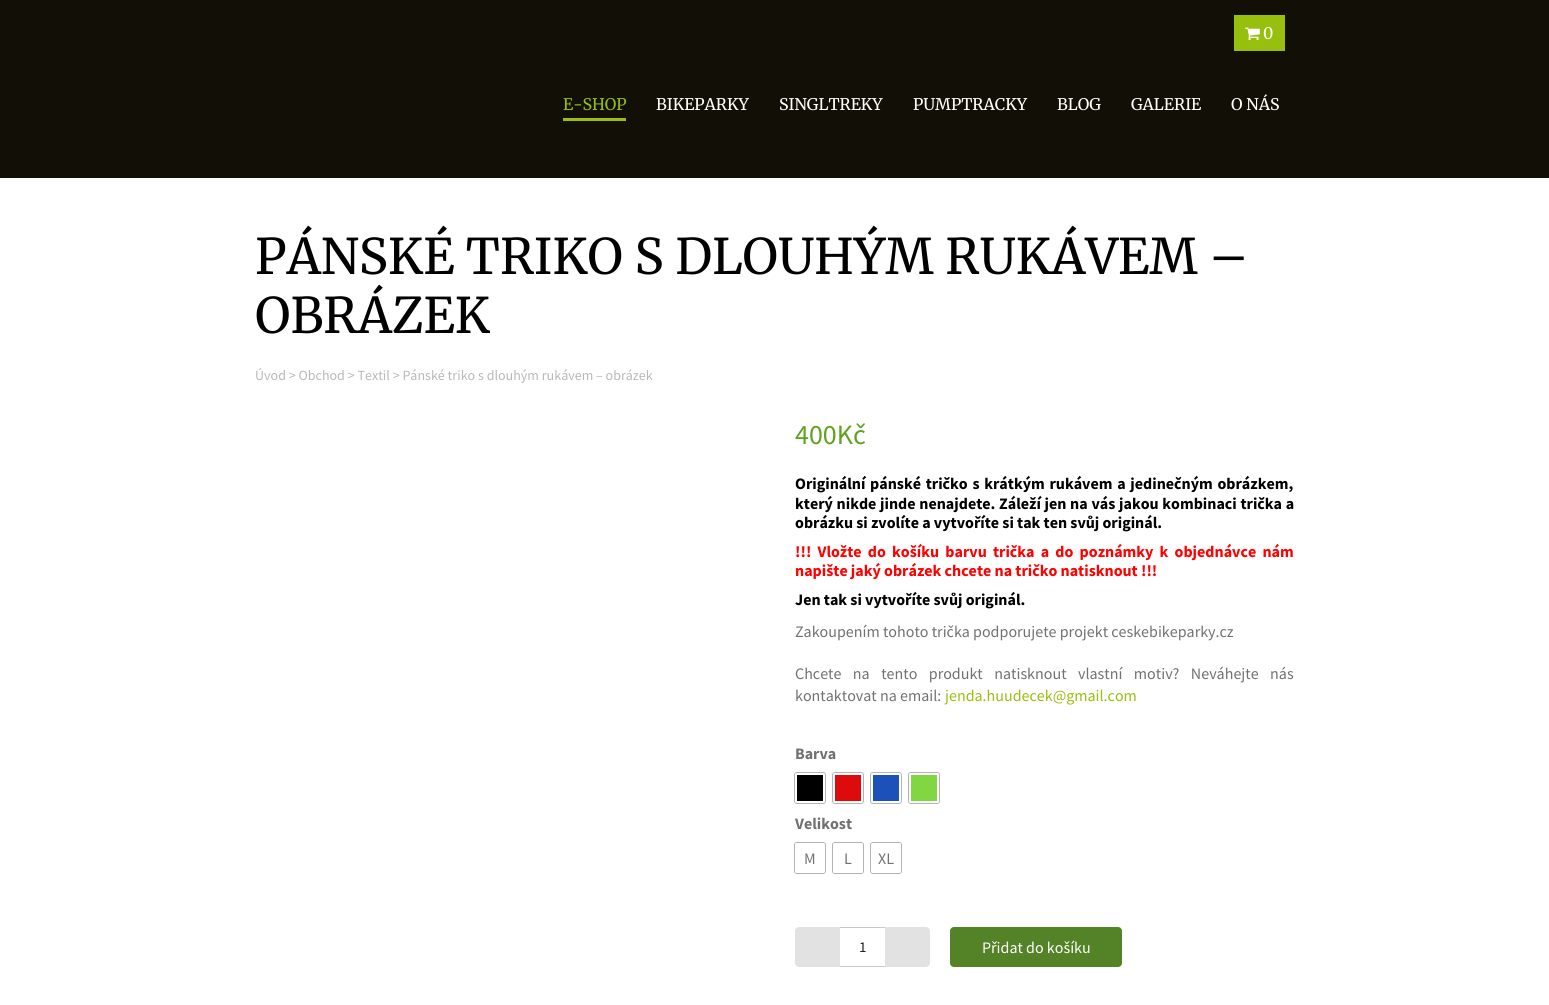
import math
import cairocffi as cairo

surface = cairo.ImageSurface(cairo.FORMAT_RGB24, 1549, 1005)
ctx = cairo.Context(surface)
options = cairo.FontOptions()
options.set_hint_metrics(cairo.HINT_METRICS_OFF)
options.set_hint_style(cairo.HINT_STYLE_NONE)
ctx.set_font_options(options)
ctx.set_miter_limit(4)


def rgb(r, g, b):
    ctx.set_source_rgb(r / 255, g / 255, b / 255)


def face(family, size, italic, bold):
    ctx.select_font_face(family, cairo.FONT_SLANT_ITALIC if italic else cairo.FONT_SLANT_NORMAL, cairo.FONT_WEIGHT_BOLD if bold else cairo.FONT_WEIGHT_NORMAL)
    ctx.set_font_size(size)


def label(x, y, s):
    ctx.move_to(x, y)
    ctx.show_text(s)


def tracked(x, y, s, letter, word):
    ctx.move_to(x, y)
    for ch in s:
        ctx.show_text(ch)
        ctx.rel_move_to(letter + word * (ch == ' '), 0)


def rect(x, y, w, h):
    ctx.rectangle(x, y, w, h)
    ctx.fill()


def rrect(x, y, w, h, r):
    ctx.new_sub_path()
    for i, (u, v) in enumerate([(x + w - r, y + h - r), (x + r, y + h - r), (x + r, y + r), (x + w - r, y + r)]):
        ctx.arc(u, v, r, i * math.pi / 2, (i + 1) * math.pi / 2)
    ctx.close_path()


def image(path, x, y, w, h):
    ctx.save()
    ctx.set_source_surface(cairo.ImageSurface.create_from_png(path), x, y)
    ctx.rectangle(x, y, w, h)
    ctx.fill()
    ctx.restore()


rgb(255, 255, 255)
ctx.paint()
rgb(17, 15, 6)
rect(0, 0, 1549, 178)
rgb(151, 191, 13)
rect(1234, 15, 51, 36)
image('image0.png', 1245, 27, 15, 14)
face('Merriweather', 16, 0, 0)
rgb(255, 255, 255)
label(1263, 39, '0')
rgb(151, 191, 13)
label(563, 110, 'E-SHOP')
rect(563, 118, 63, 3)
rgb(255, 255, 255)
label(656, 110, 'BIKEPARKY')
label(779, 110, 'SINGLTREKY')
label(913, 110, 'PUMPTRACKY')
label(1057, 110, 'BLOG')
label(1131, 110, 'GALERIE')
label(1231, 110, 'O NÁS')
face('Merriweather', 49, 0, 0)
rgb(0, 0, 0)
label(255, 274, 'PÁNSKÉ TRIKO S DLOUHÝM RUKÁVEM –')
label(255, 333, 'OBRÁZEK')
face('Source Sans Pro', 14, 0, 0)
rgb(184, 184, 184)
label(255, 380, 'Úvod > Obchod > Textil > Pánské triko s dlouhým rukávem – obrázek')
face('Source Sans Pro', 28, 0, 0)
rgb(94, 162, 30)
label(795, 444, '400Kč')
face('Source Sans Pro', 16, 0, 1)
rgb(0, 0, 0)
tracked(795, 489, 'Originální pánské tričko s krátkým rukávem a jedinečným obrázkem,', 0, 1.5)
tracked(795, 509, 'který nikde jinde nenajdete. Záleží jen na vás jakou kombinaci trička a', 0, 0.5)
label(795, 528, 'obrázku si zvolíte a vytvoříte si tak ten svůj originál.')
rgb(255, 0, 0)
tracked(795, 557, '!!! Vložte do košíku barvu trička a do poznámky k objednávce nám', 0, 3)
label(795, 576, 'napište jaký obrázek chcete na tričko natisknout !!!')
rgb(0, 0, 0)
label(795, 605, 'Jen tak si vytvoříte svůj originál.')
face('Source Sans Pro', 16, 0, 0)
rgb(113, 113, 113)
label(795, 637, 'Zakoupením tohoto trička podporujete projekt ceskebikeparky.cz')
tracked(795, 679, 'Chcete na tento produkt natisknout vlastní motiv? Neváhejte nás', 0, 8.25)
label(795, 701, 'kontaktovat na email:')
rgb(151, 191, 13)
label(945, 701, 'jenda.huudecek@gmail.com')
face('Source Sans Pro', 16, 0, 1)
rgb(113, 113, 113)
label(795, 759, 'Barva')
rrect(794.5, 772.5, 31, 31, 2.5)
rgb(179, 179, 179)
ctx.set_line_width(1)
ctx.stroke()
rgb(255, 255, 255)
rrect(795, 773, 30, 30, 2)
ctx.fill()
rgb(0, 0, 0)
rect(797, 775, 26, 26)
rrect(832.5, 772.5, 31, 31, 2.5)
rgb(179, 179, 179)
ctx.stroke()
rgb(255, 255, 255)
rrect(833, 773, 30, 30, 2)
ctx.fill()
rgb(221, 11, 11)
rect(835, 775, 26, 26)
rrect(870.5, 772.5, 31, 31, 2.5)
rgb(179, 179, 179)
ctx.stroke()
rgb(255, 255, 255)
rrect(871, 773, 30, 30, 2)
ctx.fill()
rgb(29, 81, 186)
rect(873, 775, 26, 26)
rrect(908.5, 772.5, 31, 31, 2.5)
rgb(179, 179, 179)
ctx.stroke()
rgb(255, 255, 255)
rrect(909, 773, 30, 30, 2)
ctx.fill()
rgb(129, 215, 66)
rect(911, 775, 26, 26)
rgb(113, 113, 113)
label(795, 829, 'Velikost')
rrect(794.5, 842.5, 31, 31, 2.5)
rgb(179, 179, 179)
ctx.stroke()
rgb(255, 255, 255)
rrect(795, 843, 30, 30, 2)
ctx.fill()
face('Source Sans Pro', 16, 0, 0)
rgb(113, 113, 113)
label(804, 864, 'M')
rrect(832.5, 842.5, 31, 31, 2.5)
rgb(179, 179, 179)
ctx.stroke()
rgb(255, 255, 255)
rrect(833, 843, 30, 30, 2)
ctx.fill()
rgb(113, 113, 113)
label(844, 864, 'L')
rrect(870.5, 842.5, 31, 31, 2.5)
rgb(179, 179, 179)
ctx.stroke()
rgb(255, 255, 255)
rrect(871, 843, 30, 30, 2)
ctx.fill()
rgb(113, 113, 113)
label(878, 864, 'XL')
rgb(226, 226, 226)
ctx.new_path()
ctx.move_to(799, 927)
ctx.line_to(840, 927)
ctx.line_to(840, 967)
ctx.line_to(799, 967)
ctx.curve_to(797, 967, 795, 965, 795, 963)
ctx.line_to(795, 931)
ctx.curve_to(795, 929, 797, 927, 799, 927)
ctx.close_path()
ctx.fill()
rgb(202, 201, 201)
rect(840, 927, 45, 1)
rect(840, 966, 45, 1)
face('Source Sans Pro', 15, 0, 0)
rgb(34, 34, 34)
label(859, 952, '1')
rgb(226, 226, 226)
ctx.new_path()
ctx.move_to(885, 927)
ctx.line_to(926, 927)
ctx.curve_to(928, 927, 930, 929, 930, 931)
ctx.line_to(930, 963)
ctx.curve_to(930, 965, 928, 967, 926, 967)
ctx.line_to(885, 967)
ctx.close_path()
ctx.fill()
rgb(83, 131, 38)
rrect(950, 927, 172, 40, 4)
ctx.fill()
face('Source Sans Pro', 16, 0, 0)
rgb(255, 255, 255)
label(982, 953, 'Přidat do košíku')
surface.write_to_png('render.png')
